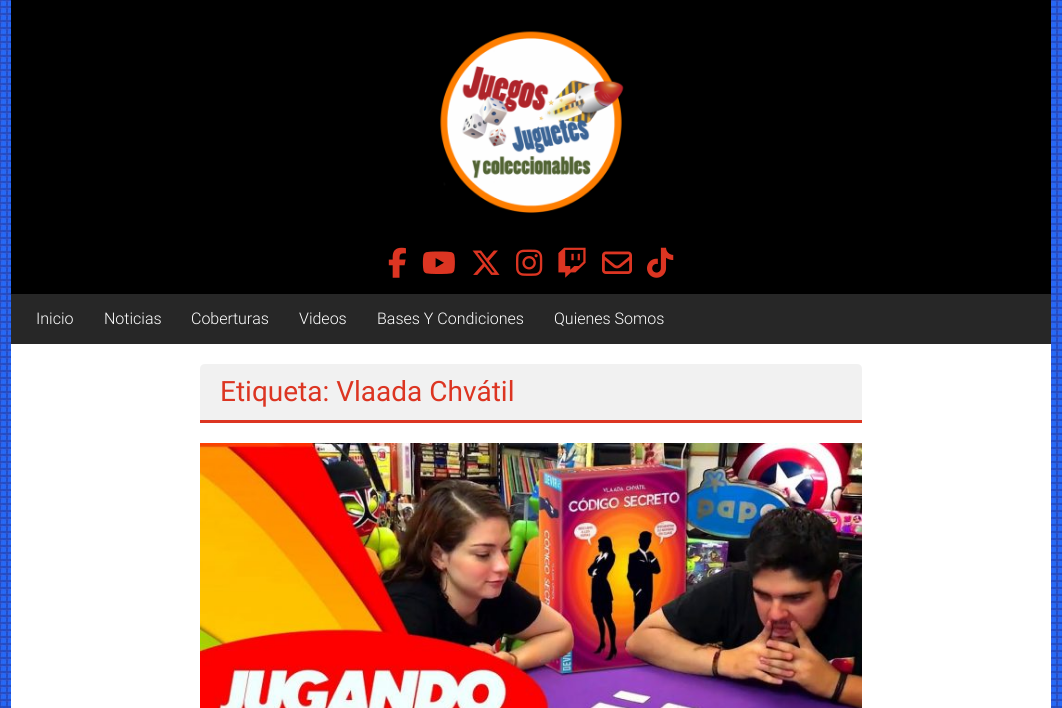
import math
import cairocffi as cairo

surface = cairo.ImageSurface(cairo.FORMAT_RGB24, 1062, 708)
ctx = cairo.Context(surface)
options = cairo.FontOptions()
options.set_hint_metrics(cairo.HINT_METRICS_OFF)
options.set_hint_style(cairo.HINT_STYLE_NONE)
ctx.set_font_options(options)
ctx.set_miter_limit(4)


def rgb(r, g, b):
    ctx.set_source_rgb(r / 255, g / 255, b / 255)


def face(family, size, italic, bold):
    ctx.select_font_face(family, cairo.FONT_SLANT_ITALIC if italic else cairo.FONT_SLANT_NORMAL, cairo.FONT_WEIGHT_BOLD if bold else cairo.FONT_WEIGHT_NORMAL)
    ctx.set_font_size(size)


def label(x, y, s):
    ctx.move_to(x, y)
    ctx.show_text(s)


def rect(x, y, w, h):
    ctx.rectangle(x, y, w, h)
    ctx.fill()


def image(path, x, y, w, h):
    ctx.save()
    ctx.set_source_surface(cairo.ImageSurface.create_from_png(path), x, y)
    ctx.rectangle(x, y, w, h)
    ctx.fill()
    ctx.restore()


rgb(255, 255, 255)
ctx.paint()
image('image0.png', 0, 0, 1062, 708)
rgb(255, 255, 255)
rect(11, 344, 1040, 364)
rgb(0, 0, 0)
rect(11, 0, 1040, 294)
image('image1.png', 440, 31, 184, 182)
image('image2.png', 388, 247, 18, 31)
image('image3.png', 422, 251, 33, 23)
image('image4.png', 472, 250, 28, 25)
image('image5.png', 516, 249, 27, 27)
image('image6.png', 558, 247, 28, 31)
image('image7.png', 602, 251, 30, 23)
image('image8.png', 647, 247, 27, 31)
rgb(39, 39, 39)
rect(11, 294, 1040, 50)
face('Roboto Light', 16, 0, 0)
rgb(255, 255, 255)
label(36, 324, 'Inicio')
label(104, 324, 'Noticias')
label(191, 324, 'Coberturas')
label(299, 324, 'Videos')
label(377, 324, 'Bases Y Condiciones')
label(554, 324, 'Quienes Somos')
rgb(241, 241, 241)
ctx.new_path()
ctx.move_to(205, 364)
ctx.line_to(857, 364)
ctx.curve_to(860, 364, 862, 366, 862, 369)
ctx.line_to(862, 423)
ctx.line_to(200, 423)
ctx.line_to(200, 369)
ctx.curve_to(200, 366, 202, 364, 205, 364)
ctx.close_path()
ctx.fill()
rgb(220, 53, 34)
rect(200, 420, 662, 3)
face('Roboto', 28, 0, 0)
label(220, 401, 'Etiqueta: Vlaada Chvátil')
image('image9.png', 200, 443, 662, 265)
surface.write_to_png('render.png')
